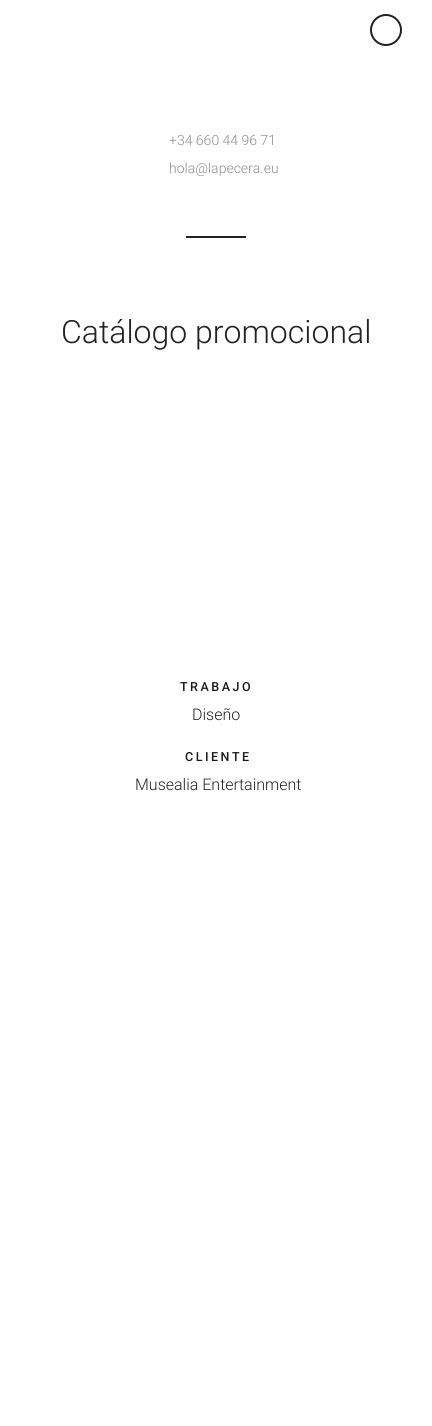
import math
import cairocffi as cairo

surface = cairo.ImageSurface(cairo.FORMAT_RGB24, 432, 1426)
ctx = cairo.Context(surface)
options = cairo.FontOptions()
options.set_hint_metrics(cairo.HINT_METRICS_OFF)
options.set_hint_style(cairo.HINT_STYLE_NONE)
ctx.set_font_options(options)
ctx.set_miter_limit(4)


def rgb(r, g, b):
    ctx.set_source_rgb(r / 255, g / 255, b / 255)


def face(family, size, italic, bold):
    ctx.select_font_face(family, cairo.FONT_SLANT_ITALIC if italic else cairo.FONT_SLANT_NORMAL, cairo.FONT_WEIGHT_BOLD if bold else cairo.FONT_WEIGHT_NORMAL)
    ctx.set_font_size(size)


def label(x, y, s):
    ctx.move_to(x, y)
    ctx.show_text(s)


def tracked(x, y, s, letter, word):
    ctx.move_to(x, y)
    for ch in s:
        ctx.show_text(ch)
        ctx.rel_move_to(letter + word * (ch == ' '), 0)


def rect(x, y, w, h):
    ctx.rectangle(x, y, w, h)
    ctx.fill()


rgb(255, 255, 255)
ctx.paint()
ctx.arc(386, 30, 15, 0, 2 * math.pi)
rgb(34, 34, 34)
ctx.stroke()
face('Roboto Light', 14, 0, 0)
rgb(141, 141, 141)
label(169, 145, '+34 660 44 96 71')
label(169, 173, 'hola@lapecera.eu')
rgb(34, 34, 34)
rect(186, 236, 60, 2)
face('Roboto Light', 32, 0, 0)
label(61, 343, 'Catálogo promocional')
face('Roboto Medium', 12.5, 0, 0)
rgb(25, 25, 25)
tracked(180, 691, 'TRABAJO', 2.5, 0)
face('Roboto Light', 16, 0, 0)
rgb(34, 34, 34)
label(192, 720, 'Diseño')
face('Roboto Medium', 12.5, 0, 0)
rgb(25, 25, 25)
tracked(185, 761, 'CLIENTE', 2.5, 0)
face('Roboto Light', 16, 0, 0)
rgb(34, 34, 34)
label(135, 790, 'Musealia Entertainment')
surface.write_to_png('render.png')
